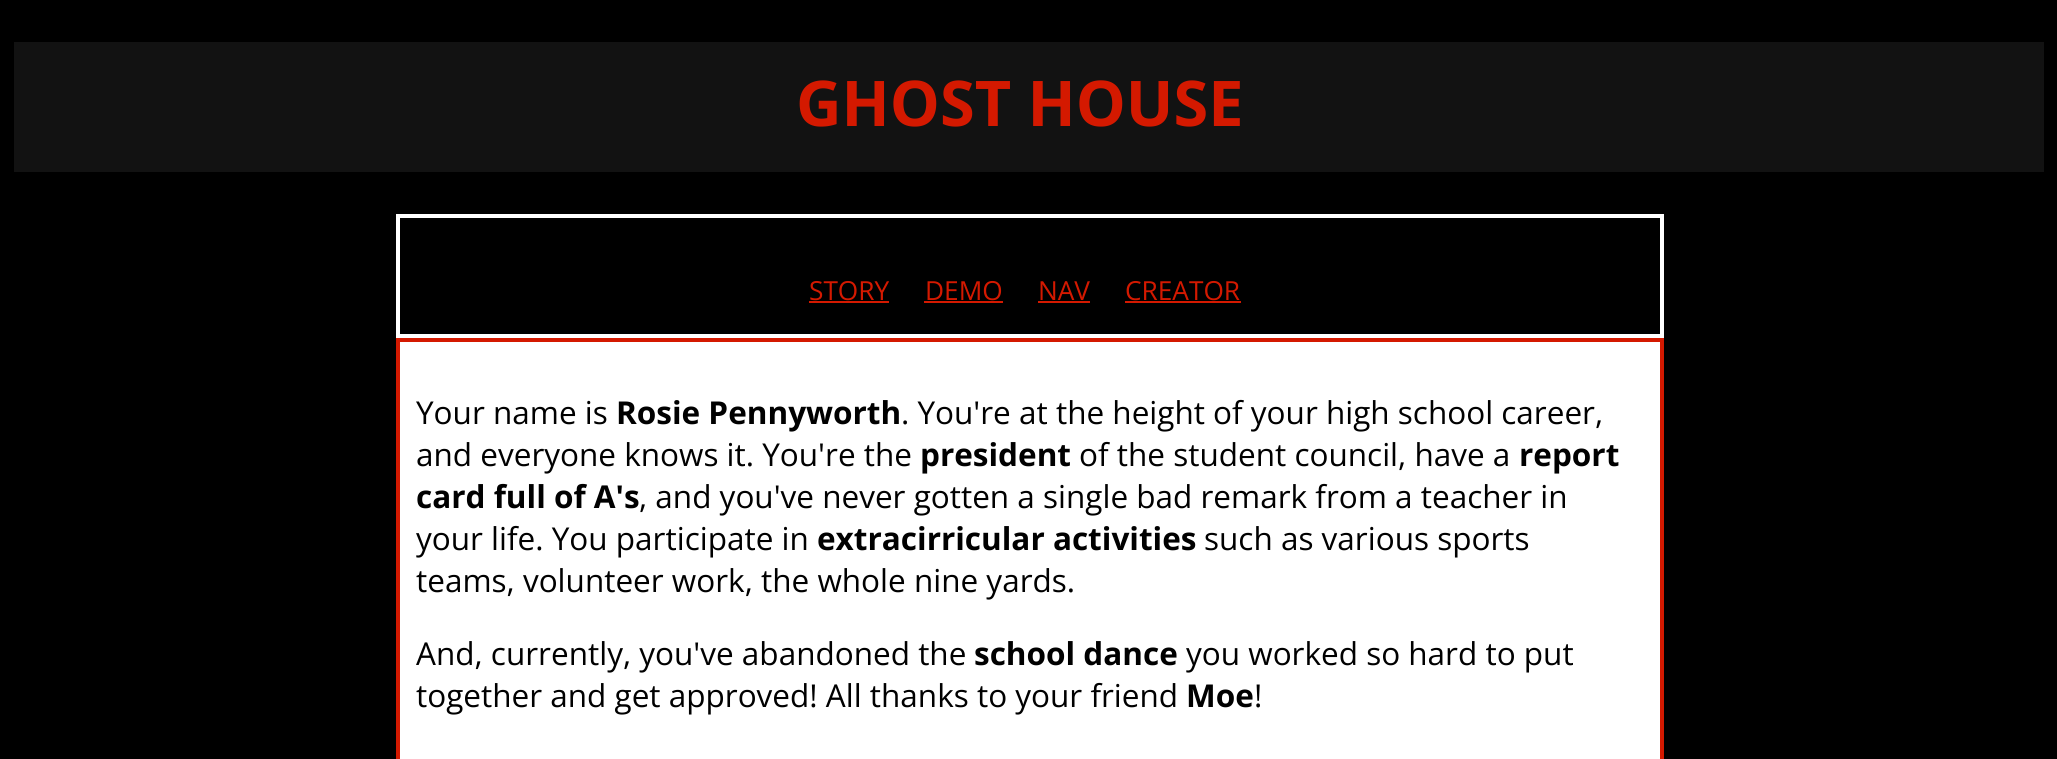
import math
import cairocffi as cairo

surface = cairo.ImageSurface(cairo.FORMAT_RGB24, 2057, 759)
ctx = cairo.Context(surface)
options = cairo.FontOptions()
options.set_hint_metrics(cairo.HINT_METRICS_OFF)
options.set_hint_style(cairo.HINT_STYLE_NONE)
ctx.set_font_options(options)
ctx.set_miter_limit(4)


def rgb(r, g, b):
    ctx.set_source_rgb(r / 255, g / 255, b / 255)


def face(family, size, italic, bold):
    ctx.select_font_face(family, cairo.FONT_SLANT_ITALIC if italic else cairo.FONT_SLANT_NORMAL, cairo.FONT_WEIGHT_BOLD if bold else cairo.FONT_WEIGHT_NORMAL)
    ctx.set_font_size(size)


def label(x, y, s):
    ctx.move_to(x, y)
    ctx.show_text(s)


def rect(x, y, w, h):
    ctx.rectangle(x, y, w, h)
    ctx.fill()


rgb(0, 0, 0)
ctx.paint()
rgb(18, 18, 18)
rect(14, 42, 2030, 130)
face('Open Sans', 63, 0, 1)
rgb(212, 25, 0)
label(796, 126, 'GHOST HOUSE')
ctx.rectangle(398, 216, 1264, 120)
rgb(255, 255, 255)
ctx.set_line_width(4)
ctx.stroke()
face('Open Sans', 26.25, 0, 0)
rgb(212, 25, 0)
label(809, 300, 'STORY')
rect(809, 301, 80, 2)
label(925, 300, 'DEMO')
rect(924, 301, 79, 2)
label(1038, 300, 'NAV')
rect(1038, 301, 52, 2)
label(1125, 300, 'CREATOR')
rect(1125, 301, 116, 2)
rgb(255, 255, 255)
ctx.rectangle(398, 340, 1264, 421)
ctx.fill_preserve()
rgb(212, 25, 0)
ctx.stroke()
face('Open Sans', 31.5, 0, 0)
rgb(0, 0, 0)
label(416, 424, 'Your name is')
face('Open Sans', 31.5, 0, 1)
label(616, 424, 'Rosie Pennyworth')
face('Open Sans', 31.5, 0, 0)
label(901, 424, '. You\'re at the height of your high school career,')
label(416, 466, 'and everyone knows it. You\'re the')
face('Open Sans', 31.5, 0, 1)
label(920, 466, 'president')
face('Open Sans', 31.5, 0, 0)
label(1079, 466, 'of the student council, have a')
face('Open Sans', 31.5, 0, 1)
label(1519, 466, 'report')
label(416, 508, 'card full of A\'s')
face('Open Sans', 31.5, 0, 0)
label(639, 508, ', and you\'ve never gotten a single bad remark from a teacher in')
label(416, 550, 'your life. You participate in')
face('Open Sans', 31.5, 0, 1)
label(817, 550, 'extracirricular activities')
face('Open Sans', 31.5, 0, 0)
label(1204, 550, 'such as various sports')
label(416, 592, 'teams, volunteer work, the whole nine yards.')
label(416, 665, 'And, currently, you\'ve abandoned the')
face('Open Sans', 31.5, 0, 1)
label(974, 665, 'school dance')
face('Open Sans', 31.5, 0, 0)
label(1186, 665, 'you worked so hard to put')
label(416, 707, 'together and get approved! All thanks to your friend')
face('Open Sans', 31.5, 0, 1)
label(1186, 707, 'Moe')
face('Open Sans', 31.5, 0, 0)
label(1254, 707, '!')
surface.write_to_png('render.png')
